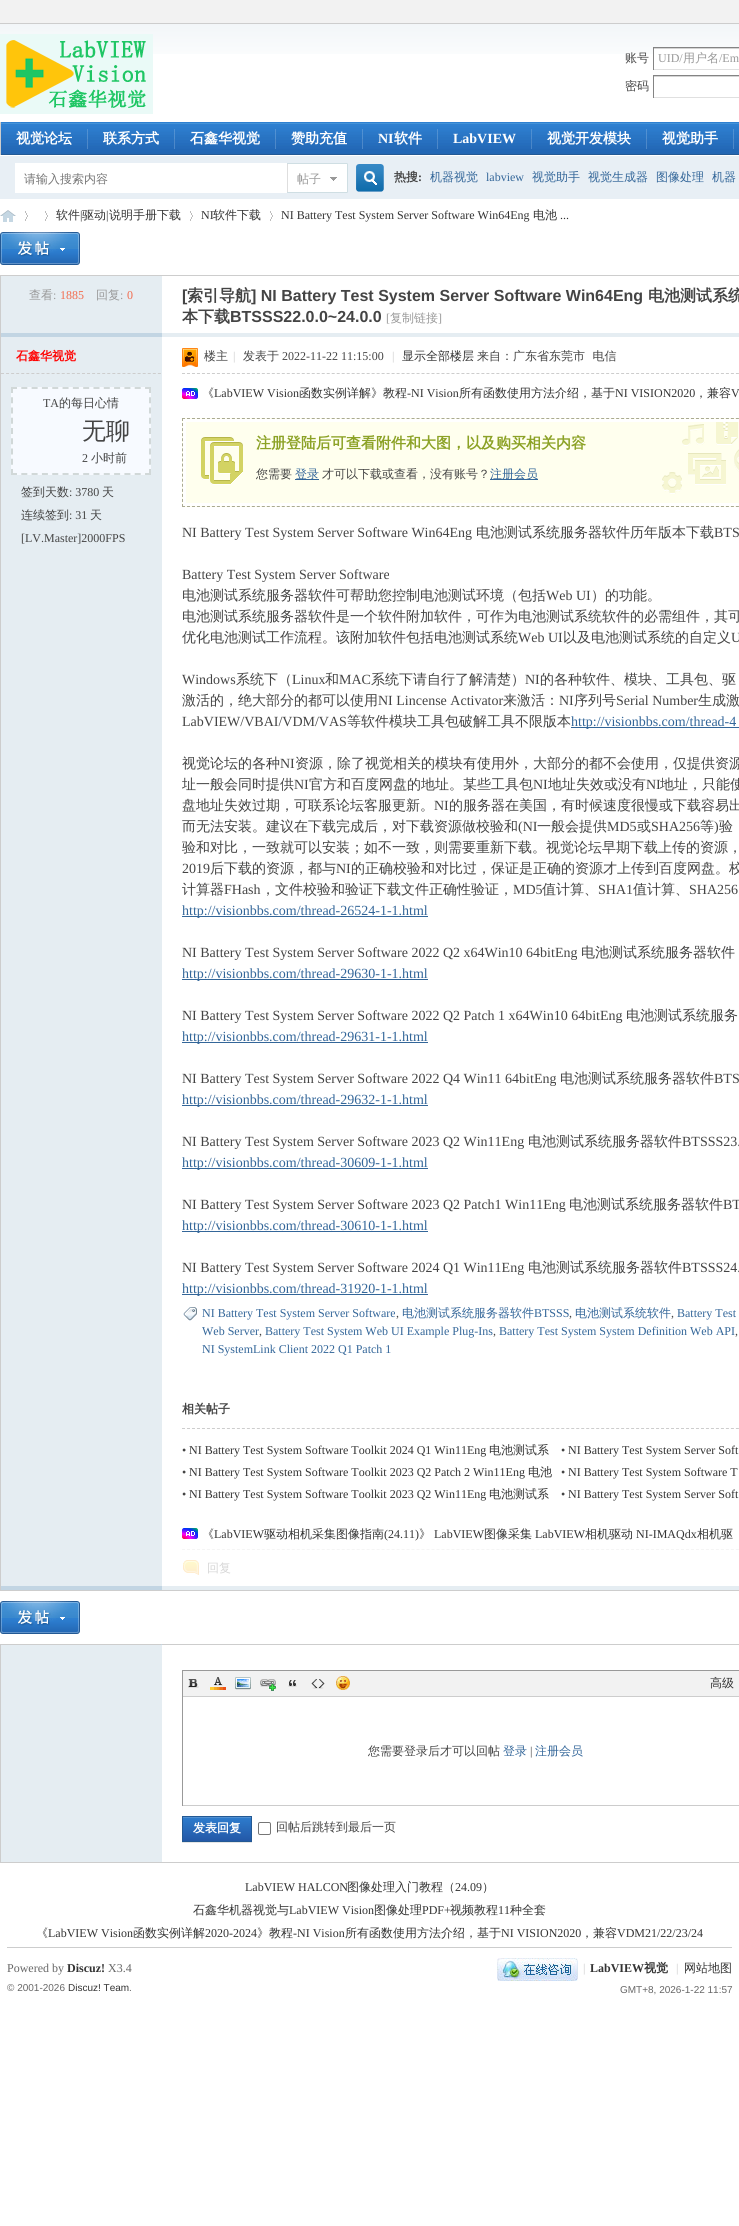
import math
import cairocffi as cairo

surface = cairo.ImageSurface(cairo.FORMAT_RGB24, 739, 2226)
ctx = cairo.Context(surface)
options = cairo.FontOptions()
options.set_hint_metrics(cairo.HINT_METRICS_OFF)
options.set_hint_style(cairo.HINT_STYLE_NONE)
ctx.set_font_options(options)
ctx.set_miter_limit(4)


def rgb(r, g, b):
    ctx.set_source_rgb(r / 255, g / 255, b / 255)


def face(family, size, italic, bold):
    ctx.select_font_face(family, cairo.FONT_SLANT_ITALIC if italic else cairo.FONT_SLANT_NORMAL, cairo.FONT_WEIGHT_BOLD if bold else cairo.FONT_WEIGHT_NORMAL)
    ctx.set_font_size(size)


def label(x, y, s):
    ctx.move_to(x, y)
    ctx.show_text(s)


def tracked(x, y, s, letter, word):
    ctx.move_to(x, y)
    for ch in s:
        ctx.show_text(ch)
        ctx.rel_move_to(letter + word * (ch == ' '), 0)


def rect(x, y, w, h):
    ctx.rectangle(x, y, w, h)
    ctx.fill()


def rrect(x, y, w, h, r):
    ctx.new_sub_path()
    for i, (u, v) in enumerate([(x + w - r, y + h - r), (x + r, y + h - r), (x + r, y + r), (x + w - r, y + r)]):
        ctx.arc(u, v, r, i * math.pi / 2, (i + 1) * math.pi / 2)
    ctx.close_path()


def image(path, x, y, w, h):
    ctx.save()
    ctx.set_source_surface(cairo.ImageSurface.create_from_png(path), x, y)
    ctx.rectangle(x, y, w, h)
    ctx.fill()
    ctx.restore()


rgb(255, 255, 255)
ctx.paint()
image('image0.png', 0, 24, 739, 30)
rgb(242, 242, 242)
rect(0, 0, 739, 23)
rgb(205, 205, 205)
rect(0, 23, 739, 1)
image('image1.png', 0, 34, 153, 80)
face('WenQuanYi Zen Hei Medium', 12, 0, 0)
rgb(68, 68, 68)
label(625, 62, '账号')
rgb(255, 255, 255)
rect(654, 49, 85, 5)
rgb(212, 212, 212)
rect(653, 48, 86, 1)
rgb(132, 132, 132)
rect(653, 47, 86, 1)
rgb(224, 224, 224)
rect(653, 69, 86, 1)
rgb(132, 132, 132)
rect(653, 47, 1, 23)
face('Liberation Serif', 12, 0, 0)
rgb(153, 153, 153)
label(658, 62, 'UID/')
face('WenQuanYi Zen Hei Medium', 12, 0, 0)
label(683, 62, '用户名')
face('Liberation Serif', 12, 0, 0)
label(719, 62, '/Em')
face('WenQuanYi Zen Hei Medium', 12, 0, 0)
rgb(68, 68, 68)
label(625, 90, '密码')
rgb(212, 212, 212)
rect(653, 76, 86, 1)
rgb(132, 132, 132)
rect(653, 75, 86, 1)
rgb(224, 224, 224)
rect(653, 97, 86, 1)
rgb(132, 132, 132)
rect(653, 75, 1, 23)
image('image2.png', 1, 122, 738, 33)
rgb(205, 205, 205)
rect(0, 122, 1, 33)
image('image3.png', 87, 129, 1, 20)
face('WenQuanYi Zen Hei', 14, 0, 1)
rgb(255, 255, 255)
label(16, 143, '视觉论坛')
image('image3.png', 174, 129, 1, 20)
label(103, 143, '联系方式')
image('image3.png', 275, 129, 1, 20)
label(190, 143, '石鑫华视觉')
image('image3.png', 362, 129, 1, 20)
label(291, 143, '赞助充值')
image('image3.png', 437, 129, 1, 20)
face('Liberation Serif', 14, 0, 1)
label(378, 143, 'NI')
face('WenQuanYi Zen Hei', 14, 0, 1)
label(394, 143, '软件')
image('image4.png', 531, 129, 1, 20)
face('Liberation Serif', 14, 0, 1)
label(453, 143, 'LabVIEW')
image('image3.png', 646, 129, 1, 20)
face('WenQuanYi Zen Hei', 14, 0, 1)
label(547, 143, '视觉开发模块')
image('image3.png', 733, 129, 1, 20)
label(662, 143, '视觉助手')
rgb(232, 239, 245)
rect(0, 156, 739, 43)
rgb(255, 255, 255)
rect(15, 163, 272, 30)
image('image5.png', 356, 164, 28, 28)
face('WenQuanYi Zen Hei', 12, 0, 1)
rgb(68, 68, 68)
label(394, 181, '热搜')
face('Liberation Serif', 12, 0, 1)
label(418, 181, ':')
face('WenQuanYi Zen Hei Medium', 12, 0, 0)
rgb(51, 102, 153)
label(430, 181, '机器视觉')
face('Liberation Serif', 12, 0, 0)
label(486, 181, 'labview')
face('WenQuanYi Zen Hei Medium', 12, 0, 0)
label(532, 181, '视觉助手')
label(588, 181, '视觉生成器')
label(656, 181, '图像处理')
label(712, 181, '机器')
rgb(117, 117, 117)
label(24, 183, '请输入搜索内容')
image('image6.png', 287, 163, 61, 30)
rgb(153, 153, 153)
label(297, 183, '帖子')
image('image7.png', 0, 210, 16, 12)
image('image8.png', 25, 211, 3, 10)
image('image8.png', 45, 211, 3, 10)
rgb(51, 51, 51)
label(56, 219, '软件')
face('Liberation Serif', 12, 0, 0)
label(80, 219, '|')
face('WenQuanYi Zen Hei Medium', 12, 0, 0)
label(82, 219, '驱动')
face('Liberation Serif', 12, 0, 0)
label(106, 219, '|')
face('WenQuanYi Zen Hei Medium', 12, 0, 0)
label(109, 219, '说明手册下载')
image('image8.png', 190, 211, 3, 10)
face('Liberation Serif', 12, 0, 0)
label(201, 219, 'NI')
face('WenQuanYi Zen Hei Medium', 12, 0, 0)
label(213, 219, '软件下载')
image('image8.png', 270, 211, 3, 10)
face('Liberation Serif', 12, 0, 0)
label(281, 219, 'NI Battery Test System Server Software Win64Eng')
face('WenQuanYi Zen Hei Medium', 12, 0, 0)
label(533, 219, '电池')
face('Liberation Serif', 12, 0, 0)
label(560, 219, '...')
image('image9.png', 0, 232, 80, 33)
ctx.rectangle(0.5, 275.5, 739, 1315)
rgb(205, 205, 205)
ctx.set_line_width(1)
ctx.stroke()
rgb(229, 237, 242)
rect(1, 276, 161, 57)
face('WenQuanYi Zen Hei Medium', 12, 0, 0)
rgb(153, 153, 153)
label(29, 299, '查看')
face('Liberation Serif', 12, 0, 0)
label(53, 299, ':')
rgb(242, 108, 79)
label(60, 299, '1885')
face('WenQuanYi Zen Hei Medium', 12, 0, 0)
rgb(153, 153, 153)
label(96, 299, '回复')
face('Liberation Serif', 12, 0, 0)
label(120, 299, ':')
rgb(242, 108, 79)
label(127, 299, '0')
face('Liberation Sans', 16, 0, 1)
rgb(68, 68, 68)
label(182, 301, '[')
face('WenQuanYi Zen Hei', 16, 0, 1)
label(187, 301, '索引导航')
face('Liberation Sans', 16, 0, 1)
label(251, 301, '] NI Battery Test System Server Software Win64Eng')
face('WenQuanYi Zen Hei', 16, 0, 1)
label(648, 301, '电池测试系统')
label(182, 322, '本下载')
face('Liberation Sans', 16, 0, 1)
label(230, 322, 'BTSSS22.0.0~24.0.0')
face('Liberation Serif', 12, 0, 0)
rgb(153, 153, 153)
label(386, 322, '[')
face('WenQuanYi Zen Hei Medium', 12, 0, 0)
label(390, 322, '复制链接')
face('Liberation Serif', 12, 0, 0)
label(438, 322, ']')
rgb(194, 213, 227)
rect(1, 333, 161, 4)
rgb(229, 237, 242)
rect(162, 333, 577, 4)
rect(1, 337, 161, 1249)
ctx.new_path()
ctx.move_to(1, 373.5)
ctx.line_to(161, 373.5)
rgb(205, 205, 205)
ctx.set_dash([3, 2.06])
ctx.stroke()
face('WenQuanYi Zen Hei', 12, 0, 1)
rgb(255, 0, 0)
label(16, 360, '石鑫华视觉')
rgb(247, 250, 255)
rect(11, 387, 140, 88)
ctx.new_path()
ctx.move_to(11, 388)
ctx.line_to(151, 388)
rgb(209, 216, 216)
ctx.set_line_width(2)
ctx.set_dash([6, 4.31])
ctx.stroke()
ctx.new_path()
ctx.move_to(150, 387)
ctx.line_to(150, 475)
ctx.set_dash([6, 4.25])
ctx.stroke()
ctx.new_path()
ctx.move_to(11, 474)
ctx.line_to(151, 474)
ctx.set_dash([6, 4.31])
ctx.stroke()
ctx.new_path()
ctx.move_to(12, 387)
ctx.line_to(12, 475)
ctx.set_dash([6, 4.25])
ctx.stroke()
face('Liberation Serif', 12, 0, 0)
rgb(68, 68, 68)
label(43, 407, 'TA')
face('WenQuanYi Zen Hei Medium', 12, 0, 0)
label(59, 407, '的每日心情')
face('WenQuanYi Zen Hei Medium', 24, 0, 0)
label(82, 439, '无聊')
face('Liberation Serif', 12, 0, 0)
label(82, 462, '2')
face('WenQuanYi Zen Hei Medium', 12, 0, 0)
label(91, 462, '小时前')
label(21, 496, '签到天数')
face('Liberation Serif', 12, 0, 0)
label(69, 496, ': 3780')
face('WenQuanYi Zen Hei Medium', 12, 0, 0)
label(102, 496, '天')
label(21, 519, '连续签到')
face('Liberation Serif', 12, 0, 0)
label(69, 519, ': 31')
face('WenQuanYi Zen Hei Medium', 12, 0, 0)
label(90, 519, '天')
face('Liberation Serif', 12, 0, 0)
label(21, 542, '[LV.Master]2000FPS')
ctx.new_path()
ctx.move_to(182, 373.5)
ctx.line_to(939, 373.5)
rgb(205, 205, 205)
ctx.set_line_width(1)
ctx.set_dash([3, 1.99])
ctx.stroke()
image('image10.png', 182, 348, 16, 19)
face('WenQuanYi Zen Hei Medium', 12, 0, 0)
rgb(68, 68, 68)
label(204, 360, '楼主')
face('Liberation Serif', 12, 0, 0)
rgb(204, 204, 204)
label(233, 360, '|')
face('WenQuanYi Zen Hei Medium', 12, 0, 0)
rgb(68, 68, 68)
label(243, 360, '发表于')
face('Liberation Serif', 12, 0, 0)
label(282, 360, '2022-11-22 11:15:00')
rgb(204, 204, 204)
label(392, 360, '|')
face('WenQuanYi Zen Hei Medium', 12, 0, 0)
rgb(51, 51, 51)
label(402, 360, '显示全部楼层')
rgb(68, 68, 68)
tracked(477, 360, '来自：广东省东莞市 电信', 0, 4)
image('image11.png', 182, 388, 16, 11)
rgb(51, 51, 51)
label(202, 397, '《')
face('Liberation Serif', 12, 0, 0)
label(214, 397, 'LabVIEW Vision')
face('WenQuanYi Zen Hei Medium', 12, 0, 0)
label(299, 397, '函数实例详解》教程')
face('Liberation Serif', 12, 0, 0)
label(407, 397, '-NI Vision')
face('WenQuanYi Zen Hei Medium', 12, 0, 0)
label(459, 397, '所有函数使用方法介绍，基于')
face('Liberation Serif', 12, 0, 0)
label(615, 397, 'NI VISION2020')
face('WenQuanYi Zen Hei Medium', 12, 0, 0)
label(695, 397, '，兼容')
face('Liberation Serif', 12, 0, 0)
label(731, 397, 'V')
rgb(255, 255, 238)
rect(182, 418, 557, 89)
image('image12.png', 662, 422, 77, 72)
ctx.new_path()
ctx.move_to(182, 418.5)
ctx.line_to(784, 418.5)
rgb(170, 170, 146)
ctx.stroke()
ctx.new_path()
ctx.move_to(182, 506.5)
ctx.line_to(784, 506.5)
ctx.stroke()
ctx.new_path()
ctx.move_to(182.5, 418)
ctx.line_to(182.5, 507)
ctx.set_dash([3, 2.06])
ctx.stroke()
image('image13.png', 201, 437, 42, 48)
ctx.rectangle(184.5, 420.5, 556, 84)
rgb(255, 255, 255)
ctx.set_line_width(3)
ctx.set_dash([])
ctx.stroke()
face('WenQuanYi Zen Hei', 15, 0, 1)
rgb(140, 162, 38)
label(256, 448, '注册登陆后可查看附件和大图，以及购买相关内容')
face('WenQuanYi Zen Hei Medium', 12, 0, 0)
rgb(68, 68, 68)
label(256, 478, '您需要')
rgb(51, 102, 153)
rect(295, 479, 24, 1)
label(295, 478, '登录')
rgb(68, 68, 68)
label(322, 478, '才可以下载或查看，没有账号？')
rgb(51, 102, 153)
rect(490, 479, 48, 1)
label(490, 478, '注册会员')
face('Liberation Serif', 14, 0, 0)
rgb(68, 68, 68)
label(182, 537, 'NI Battery Test System Server Software Win64Eng')
face('WenQuanYi Zen Hei Medium', 14, 0, 0)
label(476, 537, '电池测试系统服务器软件历年版本下载')
face('Liberation Serif', 14, 0, 0)
label(714, 537, 'BTS')
label(182, 579, 'Battery Test System Server Software')
face('WenQuanYi Zen Hei Medium', 14, 0, 0)
label(182, 600, '电池测试系统服务器软件可帮助您控制电池测试环境（包括')
face('Liberation Serif', 14, 0, 0)
label(546, 600, 'Web UI')
face('WenQuanYi Zen Hei Medium', 14, 0, 0)
label(591, 600, '）的功能。')
label(182, 621, '电池测试系统服务器软件是一个软件附加软件，可作为电池测试系统软件的必需组件，其可')
label(182, 642, '优化电池测试工作流程。该附加软件包括电池测试系统')
face('Liberation Serif', 14, 0, 0)
label(518, 642, 'Web UI')
face('WenQuanYi Zen Hei Medium', 14, 0, 0)
label(563, 642, '以及电池测试系统的自定义')
face('Liberation Serif', 14, 0, 0)
label(731, 642, 'U')
label(182, 684, 'Windows')
face('WenQuanYi Zen Hei Medium', 14, 0, 0)
label(236, 684, '系统下（')
face('Liberation Serif', 14, 0, 0)
label(292, 684, 'Linux')
face('WenQuanYi Zen Hei Medium', 14, 0, 0)
label(325, 684, '和')
face('Liberation Serif', 14, 0, 0)
label(339, 684, 'MAC')
face('WenQuanYi Zen Hei Medium', 14, 0, 0)
label(371, 684, '系统下请自行了解清楚）')
face('Liberation Serif', 14, 0, 0)
label(525, 684, 'NI')
face('WenQuanYi Zen Hei Medium', 14, 0, 0)
label(540, 684, '的各种软件、模块、工具包、驱')
label(182, 705, '激活的，绝大部分的都可以使用')
face('Liberation Serif', 14, 0, 0)
label(378, 705, 'NI Lincense Activator')
face('WenQuanYi Zen Hei Medium', 14, 0, 0)
label(503, 705, '来激活：')
face('Liberation Serif', 14, 0, 0)
label(559, 705, 'NI')
face('WenQuanYi Zen Hei Medium', 14, 0, 0)
label(574, 705, '序列号')
face('Liberation Serif', 14, 0, 0)
label(616, 705, 'Serial Number')
face('WenQuanYi Zen Hei Medium', 14, 0, 0)
label(698, 705, '生成激')
face('Liberation Serif', 14, 0, 0)
label(182, 726, 'LabVIEW/VBAI/VDM/VAS')
face('WenQuanYi Zen Hei Medium', 14, 0, 0)
label(347, 726, '等软件模块工具包破解工具不限版本')
rgb(51, 102, 153)
rect(571, 727, 168, 1)
face('Liberation Serif', 14, 0, 0)
label(571, 726, 'http://visionbbs.com/thread-4')
face('WenQuanYi Zen Hei Medium', 14, 0, 0)
rgb(68, 68, 68)
label(182, 768, '视觉论坛的各种')
face('Liberation Serif', 14, 0, 0)
label(280, 768, 'NI')
face('WenQuanYi Zen Hei Medium', 14, 0, 0)
label(295, 768, '资源，除了视觉相关的模块有使用外，大部分的都不会使用，仅提供资源')
label(182, 789, '址一般会同时提供')
face('Liberation Serif', 14, 0, 0)
label(294, 789, 'NI')
face('WenQuanYi Zen Hei Medium', 14, 0, 0)
label(309, 789, '官方和百度网盘的地址。某些工具包')
face('Liberation Serif', 14, 0, 0)
label(533, 789, 'NI')
face('WenQuanYi Zen Hei Medium', 14, 0, 0)
label(548, 789, '地址失效或没有')
face('Liberation Serif', 14, 0, 0)
label(646, 789, 'NI')
face('WenQuanYi Zen Hei Medium', 14, 0, 0)
label(660, 789, '地址，只能使')
label(182, 810, '盘地址失效过期，可联系论坛客服更新。')
face('Liberation Serif', 14, 0, 0)
label(434, 810, 'NI')
face('WenQuanYi Zen Hei Medium', 14, 0, 0)
label(449, 810, '的服务器在美国，有时候速度很慢或下载容易出')
label(182, 831, '而无法安装。建议在下载完成后，对下载资源做校验和')
face('Liberation Serif', 14, 0, 0)
label(518, 831, '(NI')
face('WenQuanYi Zen Hei Medium', 14, 0, 0)
label(537, 831, '一般会提供')
face('Liberation Serif', 14, 0, 0)
label(607, 831, 'MD5')
face('WenQuanYi Zen Hei Medium', 14, 0, 0)
label(637, 831, '或')
face('Liberation Serif', 14, 0, 0)
label(651, 831, 'SHA256')
face('WenQuanYi Zen Hei Medium', 14, 0, 0)
label(700, 831, '等')
face('Liberation Serif', 14, 0, 0)
label(714, 831, ')')
face('WenQuanYi Zen Hei Medium', 14, 0, 0)
label(719, 831, '验')
label(182, 852, '验和对比，一致就可以安装；如不一致，则需要重新下载。视觉论坛早期下载上传的资源，')
face('Liberation Serif', 14, 0, 0)
label(182, 873, '2019')
face('WenQuanYi Zen Hei Medium', 14, 0, 0)
label(210, 873, '后下载的资源，都与')
face('Liberation Serif', 14, 0, 0)
label(336, 873, 'NI')
face('WenQuanYi Zen Hei Medium', 14, 0, 0)
label(351, 873, '的正确校验和对比过，保证是正确的资源才上传到百度网盘。校')
label(182, 894, '计算器')
face('Liberation Serif', 14, 0, 0)
label(224, 894, 'FHash')
face('WenQuanYi Zen Hei Medium', 14, 0, 0)
label(261, 894, '，文件校验和验证下载文件正确性验证，')
face('Liberation Serif', 14, 0, 0)
label(513, 894, 'MD5')
face('WenQuanYi Zen Hei Medium', 14, 0, 0)
label(542, 894, '值计算、')
face('Liberation Serif', 14, 0, 0)
label(598, 894, 'SHA1')
face('WenQuanYi Zen Hei Medium', 14, 0, 0)
label(633, 894, '值计算、')
face('Liberation Serif', 14, 0, 0)
label(689, 894, 'SHA256')
rgb(51, 102, 153)
rect(182, 916, 246, 1)
label(182, 915, 'http://visionbbs.com/thread-26524-1-1.html')
rgb(68, 68, 68)
label(182, 957, 'NI Battery Test System Server Software 2022 Q2 x64Win10 64bitEng')
face('WenQuanYi Zen Hei Medium', 14, 0, 0)
label(581, 957, '电池测试系统服务器软件')
rgb(51, 102, 153)
rect(182, 979, 246, 1)
face('Liberation Serif', 14, 0, 0)
label(182, 978, 'http://visionbbs.com/thread-29630-1-1.html')
rgb(68, 68, 68)
label(182, 1020, 'NI Battery Test System Server Software 2022 Q2 Patch 1 x64Win10 64bitEng')
face('WenQuanYi Zen Hei Medium', 14, 0, 0)
label(626, 1020, '电池测试系统服务')
rgb(51, 102, 153)
rect(182, 1042, 246, 1)
face('Liberation Serif', 14, 0, 0)
label(182, 1041, 'http://visionbbs.com/thread-29631-1-1.html')
rgb(68, 68, 68)
label(182, 1083, 'NI Battery Test System Server Software 2022 Q4 Win11 64bitEng')
face('WenQuanYi Zen Hei Medium', 14, 0, 0)
label(560, 1083, '电池测试系统服务器软件')
face('Liberation Serif', 14, 0, 0)
label(714, 1083, 'BTS')
rgb(51, 102, 153)
rect(182, 1105, 246, 1)
label(182, 1104, 'http://visionbbs.com/thread-29632-1-1.html')
rgb(68, 68, 68)
label(182, 1146, 'NI Battery Test System Server Software 2023 Q2 Win11Eng')
face('WenQuanYi Zen Hei Medium', 14, 0, 0)
label(528, 1146, '电池测试系统服务器软件')
face('Liberation Serif', 14, 0, 0)
label(682, 1146, 'BTSSS23.')
rgb(51, 102, 153)
rect(182, 1168, 246, 1)
label(182, 1167, 'http://visionbbs.com/thread-30609-1-1.html')
rgb(68, 68, 68)
label(182, 1209, 'NI Battery Test System Server Software 2023 Q2 Patch1 Win11Eng')
face('WenQuanYi Zen Hei Medium', 14, 0, 0)
label(569, 1209, '电池测试系统服务器软件')
face('Liberation Serif', 14, 0, 0)
label(723, 1209, 'BT')
rgb(51, 102, 153)
rect(182, 1231, 246, 1)
label(182, 1230, 'http://visionbbs.com/thread-30610-1-1.html')
rgb(68, 68, 68)
label(182, 1272, 'NI Battery Test System Server Software 2024 Q1 Win11Eng')
face('WenQuanYi Zen Hei Medium', 14, 0, 0)
label(528, 1272, '电池测试系统服务器软件')
face('Liberation Serif', 14, 0, 0)
label(682, 1272, 'BTSSS24.')
rgb(51, 102, 153)
rect(182, 1294, 246, 1)
label(182, 1293, 'http://visionbbs.com/thread-31920-1-1.html')
image('image14.png', 183, 1307, 14, 14)
face('Liberation Serif', 12, 0, 0)
label(202, 1317, 'NI Battery Test System Server Software')
rgb(68, 68, 68)
label(396, 1317, ',')
face('WenQuanYi Zen Hei Medium', 12, 0, 0)
rgb(51, 102, 153)
label(402, 1317, '电池测试系统服务器软件')
face('Liberation Serif', 12, 0, 0)
label(534, 1317, 'BTSSS')
rgb(68, 68, 68)
label(569, 1317, ',')
face('WenQuanYi Zen Hei Medium', 12, 0, 0)
rgb(51, 102, 153)
label(575, 1317, '电池测试系统软件')
face('Liberation Serif', 12, 0, 0)
rgb(68, 68, 68)
label(671, 1317, ',')
rgb(51, 102, 153)
label(677, 1317, 'Battery Test')
label(202, 1335, 'Web Server')
rgb(68, 68, 68)
label(259, 1335, ',')
rgb(51, 102, 153)
label(265, 1335, 'Battery Test System Web UI Example Plug-Ins')
rgb(68, 68, 68)
label(493, 1335, ',')
rgb(51, 102, 153)
label(499, 1335, 'Battery Test System System Definition Web API')
rgb(68, 68, 68)
label(735, 1335, ',')
rgb(51, 102, 153)
label(202, 1353, 'NI SystemLink Client 2022 Q1 Patch 1')
ctx.new_path()
ctx.move_to(182, 1428.5)
ctx.line_to(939, 1428.5)
rgb(205, 205, 205)
ctx.set_line_width(1)
ctx.set_dash([3, 1.99])
ctx.stroke()
face('WenQuanYi Zen Hei', 12, 0, 1)
rgb(68, 68, 68)
label(182, 1413, '相关帖子')
face('Liberation Serif', 12, 0, 0)
label(182, 1454, '•')
rgb(51, 51, 51)
label(189, 1454, 'NI Battery Test System Software Toolkit 2024 Q1 Win11Eng')
face('WenQuanYi Zen Hei Medium', 12, 0, 0)
label(489, 1454, '电池测试系')
face('Liberation Serif', 12, 0, 0)
rgb(68, 68, 68)
label(561, 1454, '•')
rgb(51, 51, 51)
label(568, 1454, 'NI Battery Test System Server Soft')
rgb(68, 68, 68)
label(182, 1476, '•')
rgb(51, 51, 51)
label(189, 1476, 'NI Battery Test System Software Toolkit 2023 Q2 Patch 2 Win11Eng')
face('WenQuanYi Zen Hei Medium', 12, 0, 0)
label(528, 1476, '电池')
face('Liberation Serif', 12, 0, 0)
rgb(68, 68, 68)
label(561, 1476, '•')
rgb(51, 51, 51)
label(568, 1476, 'NI Battery Test System Software T')
rgb(68, 68, 68)
label(182, 1498, '•')
rgb(51, 51, 51)
label(189, 1498, 'NI Battery Test System Software Toolkit 2023 Q2 Win11Eng')
face('WenQuanYi Zen Hei Medium', 12, 0, 0)
label(489, 1498, '电池测试系')
face('Liberation Serif', 12, 0, 0)
rgb(68, 68, 68)
label(561, 1498, '•')
rgb(51, 51, 51)
label(568, 1498, 'NI Battery Test System Server Soft')
image('image11.png', 182, 1528, 16, 11)
face('WenQuanYi Zen Hei Medium', 12, 0, 0)
label(202, 1538, '《')
face('Liberation Serif', 12, 0, 0)
label(214, 1538, 'LabVIEW')
face('WenQuanYi Zen Hei Medium', 12, 0, 0)
label(264, 1538, '驱动相机采集图像指南')
face('Liberation Serif', 12, 0, 0)
label(384, 1538, '(24.11)')
face('WenQuanYi Zen Hei Medium', 12, 0, 0)
label(419, 1538, '》')
face('Liberation Serif', 12, 0, 0)
label(434, 1538, 'LabVIEW')
face('WenQuanYi Zen Hei Medium', 12, 0, 0)
label(484, 1538, '图像采集')
face('Liberation Serif', 12, 0, 0)
label(535, 1538, 'LabVIEW')
face('WenQuanYi Zen Hei Medium', 12, 0, 0)
label(585, 1538, '相机驱动')
face('Liberation Serif', 12, 0, 0)
label(636, 1538, 'NI-IMAQdx')
face('WenQuanYi Zen Hei Medium', 12, 0, 0)
label(697, 1538, '相机驱')
ctx.new_path()
ctx.move_to(182, 1549.5)
ctx.line_to(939, 1549.5)
rgb(245, 245, 245)
ctx.stroke()
image('image15.png', 183, 1560, 16, 15)
rgb(214, 214, 214)
label(207, 1572, '回复')
rgb(194, 213, 227)
rect(1, 1586, 161, 4)
rgb(229, 237, 242)
rect(162, 1586, 577, 4)
image('image9.png', 0, 1601, 80, 33)
ctx.rectangle(0.5, 1644.5, 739, 218)
rgb(205, 205, 205)
ctx.set_dash([])
ctx.stroke()
rgb(194, 213, 227)
rect(161, 1644, 1, 1)
rgb(229, 237, 242)
rect(1, 1645, 161, 217)
rgb(153, 153, 153)
rect(182, 1670, 557, 1)
rgb(204, 204, 204)
rect(182, 1805, 557, 1)
rgb(153, 153, 153)
rect(182, 1670, 1, 136)
rgb(242, 242, 242)
rect(183, 1671, 556, 25)
rgb(205, 205, 205)
rect(183, 1696, 556, 1)
image('image16.png', 188, 1679, 11, 9)
image('image17.png', 210, 1677, 16, 13)
image('image18.png', 235, 1677, 16, 13)
image('image19.png', 260, 1679, 17, 12)
image('image20.png', 288, 1680, 9, 7)
image('image21.png', 311, 1679, 14, 10)
image('image22.png', 335, 1676, 15, 14)
rgb(51, 51, 51)
label(710, 1687, '高级')
rgb(68, 68, 68)
label(368, 1755, '您需要登录后才可以回帖')
rgb(51, 102, 153)
label(503, 1755, '登录')
face('Liberation Serif', 12, 0, 0)
rgb(68, 68, 68)
label(530, 1755, '|')
face('WenQuanYi Zen Hei Medium', 12, 0, 0)
rgb(51, 102, 153)
label(535, 1755, '注册会员')
rgb(229, 229, 229)
rect(182, 1842, 70, 1)
image('image23.png', 183, 1817, 68, 24)
ctx.rectangle(182.5, 1816.5, 69, 25)
rgb(35, 89, 148)
ctx.stroke()
face('WenQuanYi Zen Hei', 12, 0, 1)
rgb(255, 255, 255)
label(193, 1832, '发表回复')
rrect(258.5, 1822.5, 12, 12, 1.5)
rgb(118, 118, 118)
ctx.stroke()
face('WenQuanYi Zen Hei Medium', 12, 0, 0)
rgb(68, 68, 68)
label(276, 1831, '回帖后跳转到最后一页')
face('Liberation Serif', 12, 0, 0)
rgb(51, 51, 51)
label(245, 1891, 'LabVIEW HALCON')
face('WenQuanYi Zen Hei Medium', 12, 0, 0)
label(347, 1891, '图像处理入门教程（')
face('Liberation Serif', 12, 0, 0)
label(455, 1891, '24.09')
face('WenQuanYi Zen Hei Medium', 12, 0, 0)
label(482, 1891, '）')
label(193, 1914, '石鑫华机器视觉与')
face('Liberation Serif', 12, 0, 0)
label(289, 1914, 'LabVIEW Vision')
face('WenQuanYi Zen Hei Medium', 12, 0, 0)
label(374, 1914, '图像处理')
face('Liberation Serif', 12, 0, 0)
label(422, 1914, 'PDF+')
face('WenQuanYi Zen Hei Medium', 12, 0, 0)
label(450, 1914, '视频教程')
face('Liberation Serif', 12, 0, 0)
label(498, 1914, '11')
face('WenQuanYi Zen Hei Medium', 12, 0, 0)
label(510, 1914, '种全套')
label(36, 1937, '《')
face('Liberation Serif', 12, 0, 0)
label(48, 1937, 'LabVIEW Vision')
face('WenQuanYi Zen Hei Medium', 12, 0, 0)
label(133, 1937, '函数实例详解')
face('Liberation Serif', 12, 0, 0)
label(205, 1937, '2020-2024')
face('WenQuanYi Zen Hei Medium', 12, 0, 0)
label(257, 1937, '》教程')
face('Liberation Serif', 12, 0, 0)
label(293, 1937, '-NI Vision')
face('WenQuanYi Zen Hei Medium', 12, 0, 0)
label(345, 1937, '所有函数使用方法介绍，基于')
face('Liberation Serif', 12, 0, 0)
label(501, 1937, 'NI VISION2020')
face('WenQuanYi Zen Hei Medium', 12, 0, 0)
label(581, 1937, '，兼容')
face('Liberation Serif', 12, 0, 0)
label(617, 1937, 'VDM21/22/23/24')
rgb(205, 205, 205)
rect(7, 1947, 725, 1)
rgb(102, 102, 102)
label(7, 1972, 'Powered by')
face('Liberation Serif', 12, 0, 1)
rgb(51, 51, 51)
label(67, 1972, 'Discuz!')
face('Liberation Serif', 12, 0, 0)
rgb(102, 102, 102)
label(108, 1972, 'X3.4')
face('Liberation Sans', 10, 0, 0)
label(7, 1991, '© 2001-2026')
rgb(51, 51, 51)
label(68, 1991, 'Discuz! Team')
rgb(102, 102, 102)
label(129, 1991, '.')
image('image24.png', 497, 1958, 81, 23)
face('Liberation Serif', 12, 0, 0)
rgb(204, 204, 204)
label(583, 1972, '|')
face('Liberation Serif', 12, 0, 1)
rgb(51, 51, 51)
label(590, 1972, 'LabVIEW')
face('WenQuanYi Zen Hei', 12, 0, 1)
label(644, 1972, '视觉')
face('Liberation Serif', 12, 0, 0)
rgb(204, 204, 204)
label(676, 1972, '|')
face('WenQuanYi Zen Hei Medium', 12, 0, 0)
rgb(51, 51, 51)
label(684, 1972, '网站地图')
face('Liberation Sans', 10, 0, 0)
rgb(102, 102, 102)
label(620, 1993, 'GMT+8, 2026-1-22 11:57')
surface.write_to_png('render.png')
